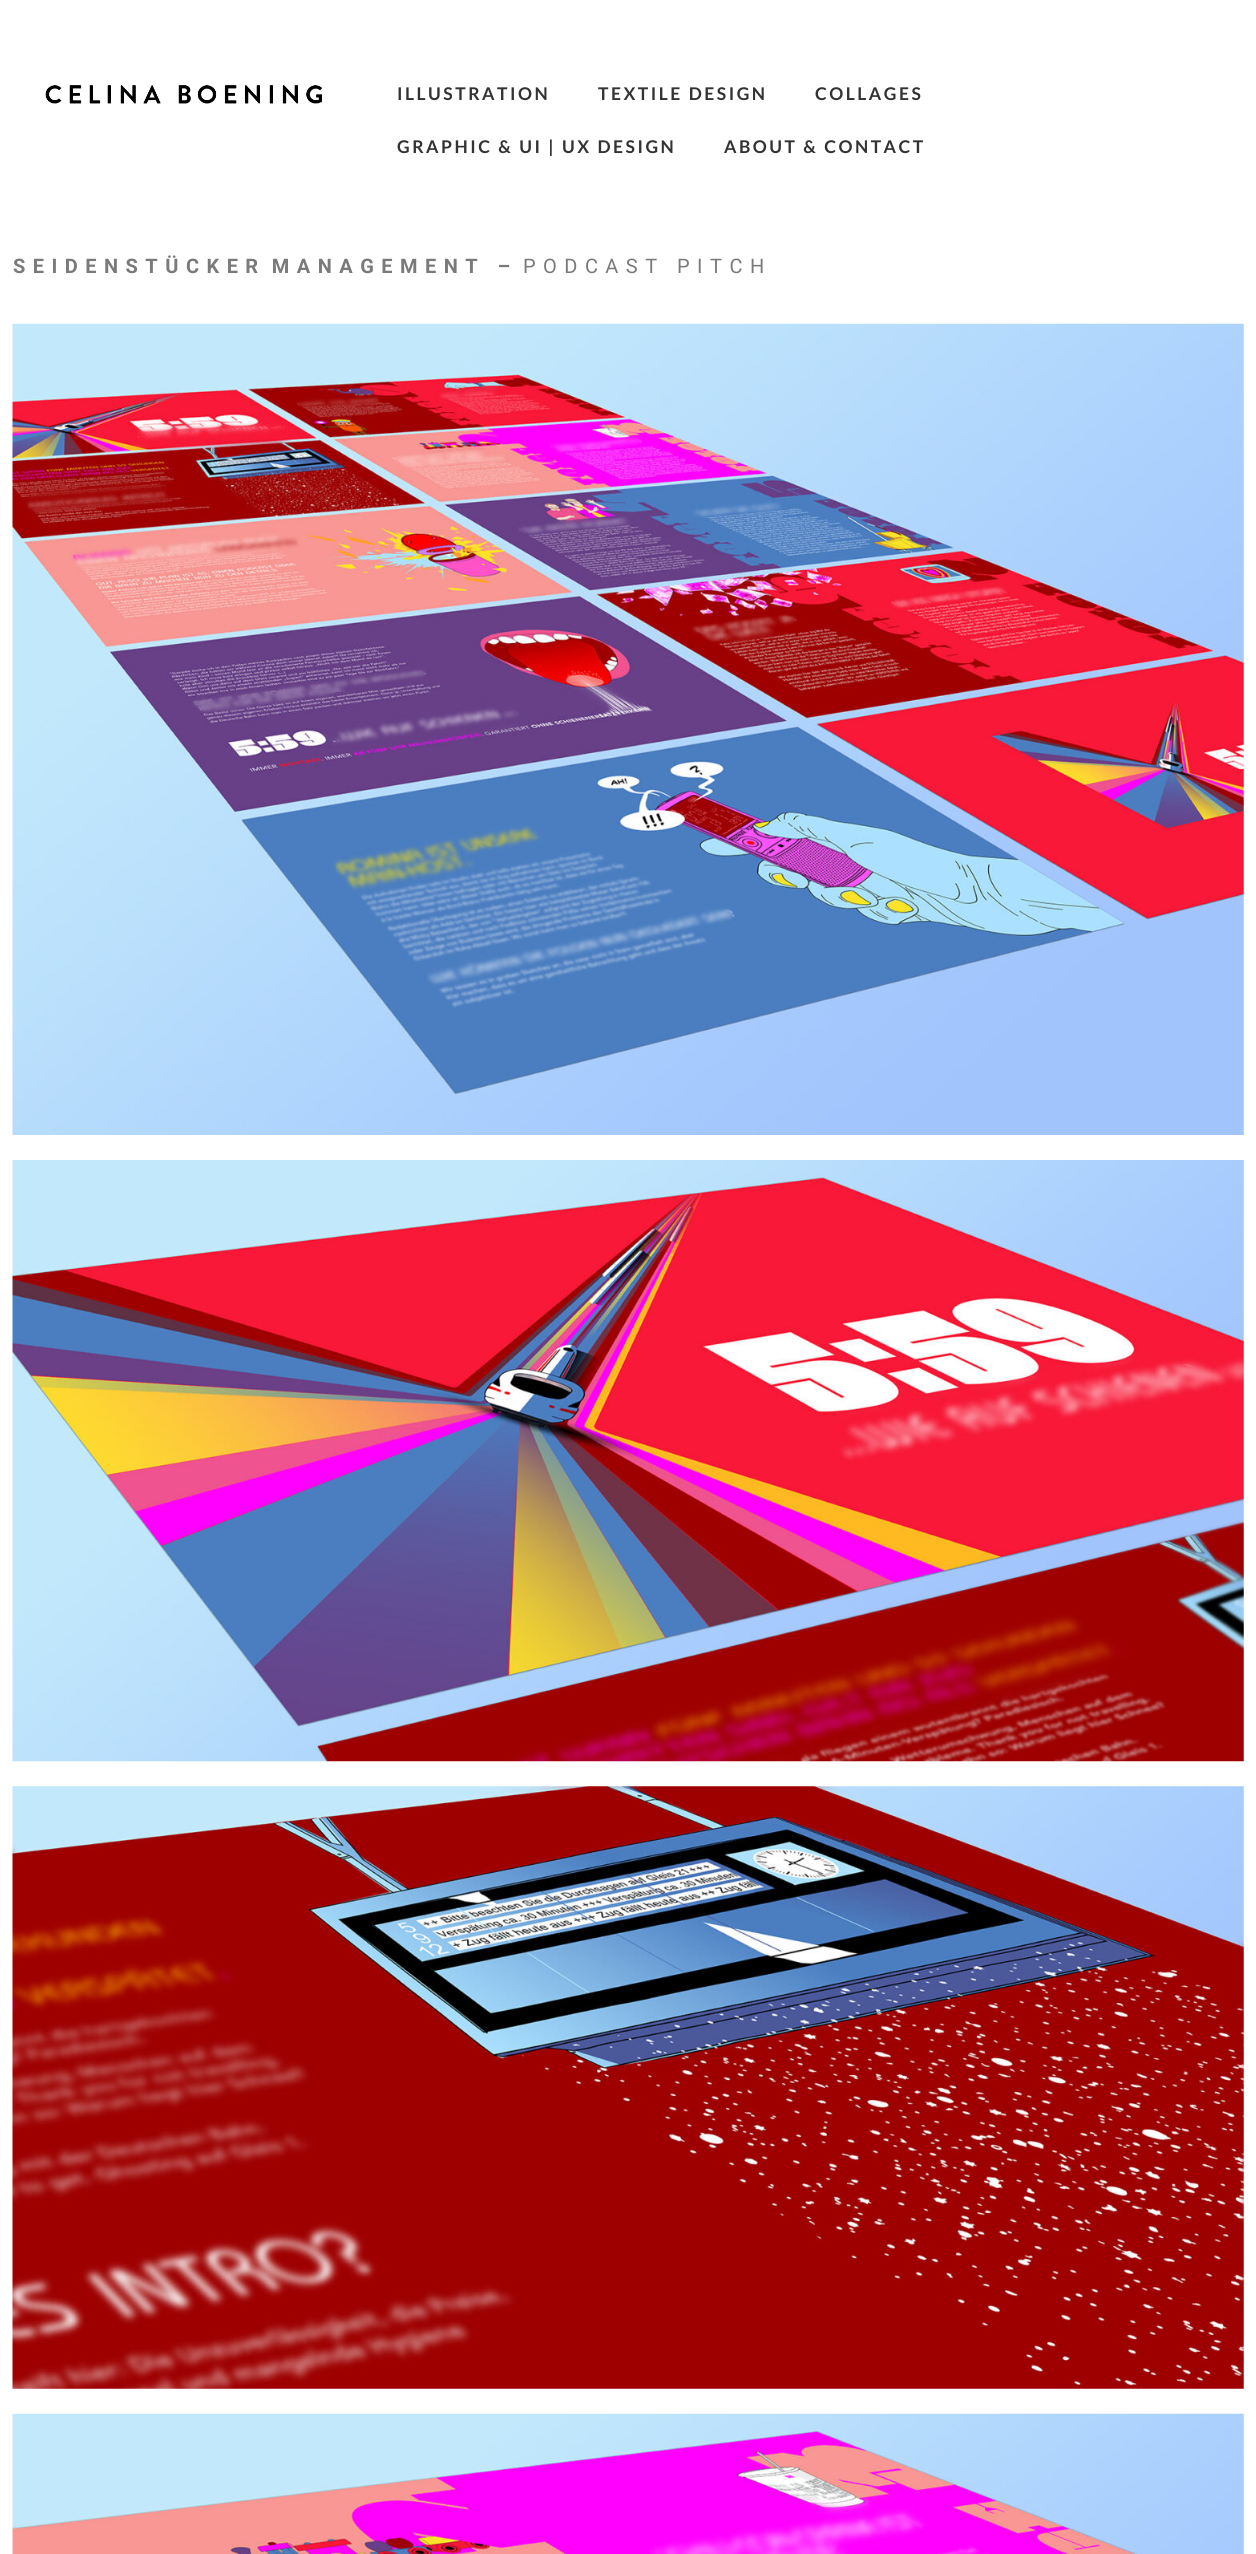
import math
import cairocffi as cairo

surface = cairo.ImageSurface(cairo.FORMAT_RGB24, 1256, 2554)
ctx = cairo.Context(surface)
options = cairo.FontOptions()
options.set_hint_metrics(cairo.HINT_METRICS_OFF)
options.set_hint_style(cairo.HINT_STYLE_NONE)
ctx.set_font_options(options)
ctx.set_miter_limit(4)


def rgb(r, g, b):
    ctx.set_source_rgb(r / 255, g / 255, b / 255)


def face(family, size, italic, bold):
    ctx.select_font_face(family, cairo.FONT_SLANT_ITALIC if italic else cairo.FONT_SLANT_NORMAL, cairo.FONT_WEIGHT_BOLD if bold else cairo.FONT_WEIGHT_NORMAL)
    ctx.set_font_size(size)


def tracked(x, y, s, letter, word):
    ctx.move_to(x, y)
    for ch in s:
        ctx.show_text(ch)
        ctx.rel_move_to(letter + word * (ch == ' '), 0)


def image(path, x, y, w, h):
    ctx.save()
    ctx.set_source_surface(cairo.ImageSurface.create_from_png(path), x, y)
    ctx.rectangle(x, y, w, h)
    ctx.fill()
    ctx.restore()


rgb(255, 255, 255)
ctx.paint()
image('image0.png', 45, 85, 277, 19)
face('Lato', 17.5, 0, 1)
rgb(51, 51, 51)
tracked(397, 100, 'ILLUSTRATION', 2.5, 0)
tracked(598, 100, 'TEXTILE DESIGN', 2.5, 0)
tracked(815, 100, 'COLLAGES', 2.5, 0)
tracked(397, 153, 'GRAPHIC & UI | UX DESIGN', 2.5, 0)
tracked(724, 153, 'ABOUT & CONTACT', 2.5, 0)
face('Roboto', 20, 0, 1)
rgb(122, 122, 122)
tracked(13, 273, 'S E I D E N S T Ü C K E R  M A N A G E M E N T   –', 1.25, 0)
face('Roboto', 20, 0, 0)
tracked(523, 273, 'P O D C A S T   P I T C H', 1.25, 0)
image('image1.png', 12, 323, 1232, 812)
image('image2.png', 12, 1160, 1232, 602)
image('image3.png', 12, 1786, 1232, 603)
image('image4.png', 12, 2413, 1232, 141)
surface.write_to_png('render.png')
